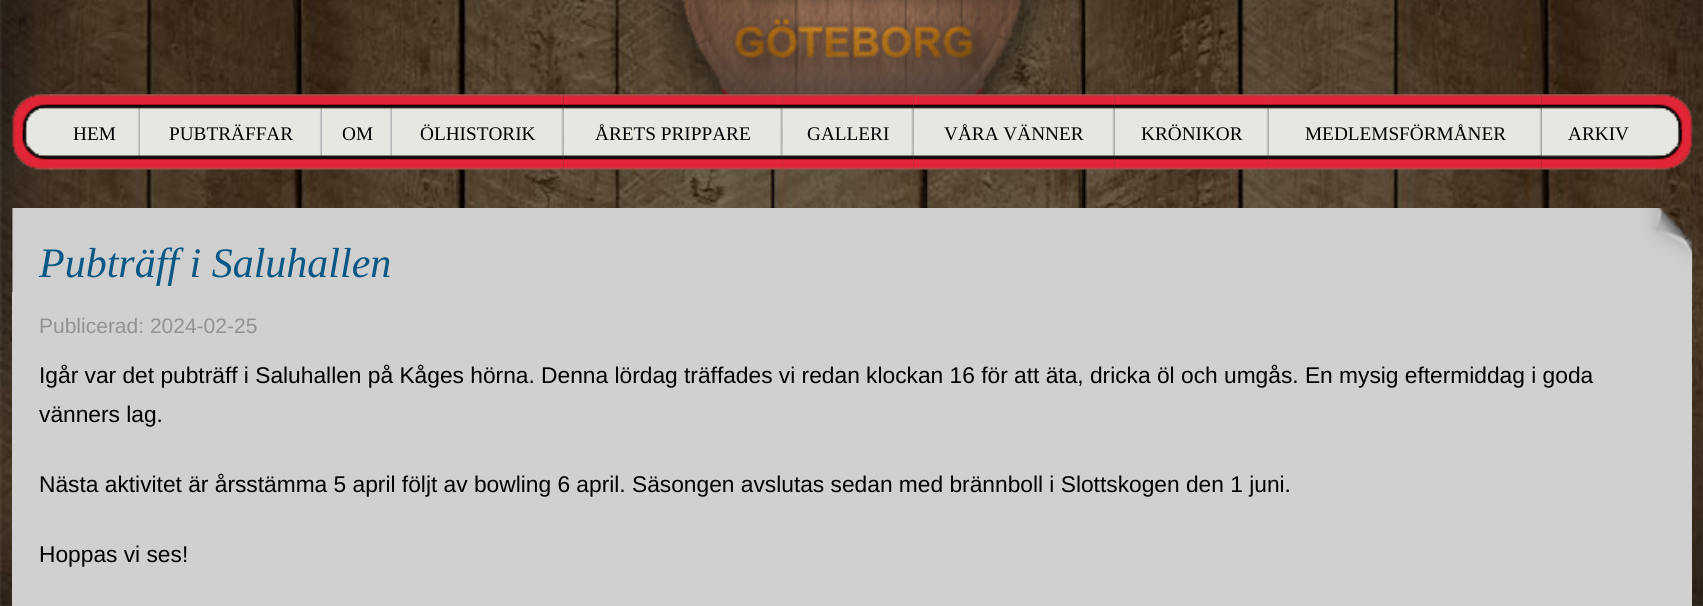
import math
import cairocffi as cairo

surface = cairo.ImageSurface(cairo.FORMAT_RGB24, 1703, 606)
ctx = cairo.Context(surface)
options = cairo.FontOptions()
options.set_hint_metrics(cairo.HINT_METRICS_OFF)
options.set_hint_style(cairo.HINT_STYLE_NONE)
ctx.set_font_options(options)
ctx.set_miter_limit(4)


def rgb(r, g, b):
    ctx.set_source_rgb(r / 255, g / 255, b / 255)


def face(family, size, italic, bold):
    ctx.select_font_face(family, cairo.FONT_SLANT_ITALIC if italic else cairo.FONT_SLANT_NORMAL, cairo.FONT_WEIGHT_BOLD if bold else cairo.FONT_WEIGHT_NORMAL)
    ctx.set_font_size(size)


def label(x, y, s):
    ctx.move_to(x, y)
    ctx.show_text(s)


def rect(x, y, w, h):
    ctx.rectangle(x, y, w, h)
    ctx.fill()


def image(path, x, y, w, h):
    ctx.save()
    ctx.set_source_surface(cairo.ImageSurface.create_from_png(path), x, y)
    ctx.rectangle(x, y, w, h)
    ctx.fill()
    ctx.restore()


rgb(255, 255, 255)
ctx.paint()
image('image0.png', 0, 0, 1703, 606)
image('image1.png', 651, 0, 403, 145)
image('image2.png', 12, 94, 41, 76)
image('image3.png', 49, 94, 91, 76)
face('Liberation Serif', 19.25, 0, 0)
rgb(0, 0, 0)
label(73, 140, 'HEM')
image('image4.png', 140, 94, 182, 76)
label(169, 140, 'PUBTRÄFFAR')
image('image5.png', 322, 94, 70, 76)
label(342, 140, 'OM')
image('image6.png', 392, 94, 172, 76)
label(420, 140, 'ÖLHISTORIK')
image('image7.png', 563, 94, 220, 76)
label(595, 140, 'ÅRETS PRIPPARE')
image('image8.png', 782, 94, 132, 76)
label(807, 140, 'GALLERI')
image('image9.png', 913, 94, 202, 76)
label(944, 140, 'VÅRA VÄNNER')
image('image10.png', 1114, 94, 155, 76)
label(1141, 140, 'KRÖNIKOR')
image('image11.png', 1268, 94, 274, 76)
label(1305, 140, 'MEDLEMSFÖRMÅNER')
image('image12.png', 1652, 94, 41, 76)
image('image13.png', 1541, 94, 115, 76)
label(1568, 140, 'ARKIV')
image('image14.png', 12, 208, 1681, 84)
face('Liberation Serif', 42, 1, 0)
rgb(8, 87, 133)
label(39, 277, 'Pubträff i Saluhallen')
rgb(208, 208, 208)
rect(12, 292, 1680, 314)
face('Liberation Sans', 21, 0, 0)
rgb(146, 146, 146)
label(39, 333, 'Publicerad: 2024-02-25')
face('Liberation Sans', 22.75, 0, 0)
rgb(0, 0, 0)
label(39, 383, 'Igår var det pubträff i Saluhallen på Kåges hörna. Denna lördag träffades vi redan klockan 16 för att äta, dricka öl och umgås. En mysig eftermiddag i goda')
label(39, 422, 'vänners lag.')
label(39, 492, 'Nästa aktivitet är årsstämma 5 april följt av bowling 6 april. Säsongen avslutas sedan med brännboll i Slottskogen den 1 juni.')
label(39, 562, 'Hoppas vi ses!')
surface.write_to_png('render.png')
